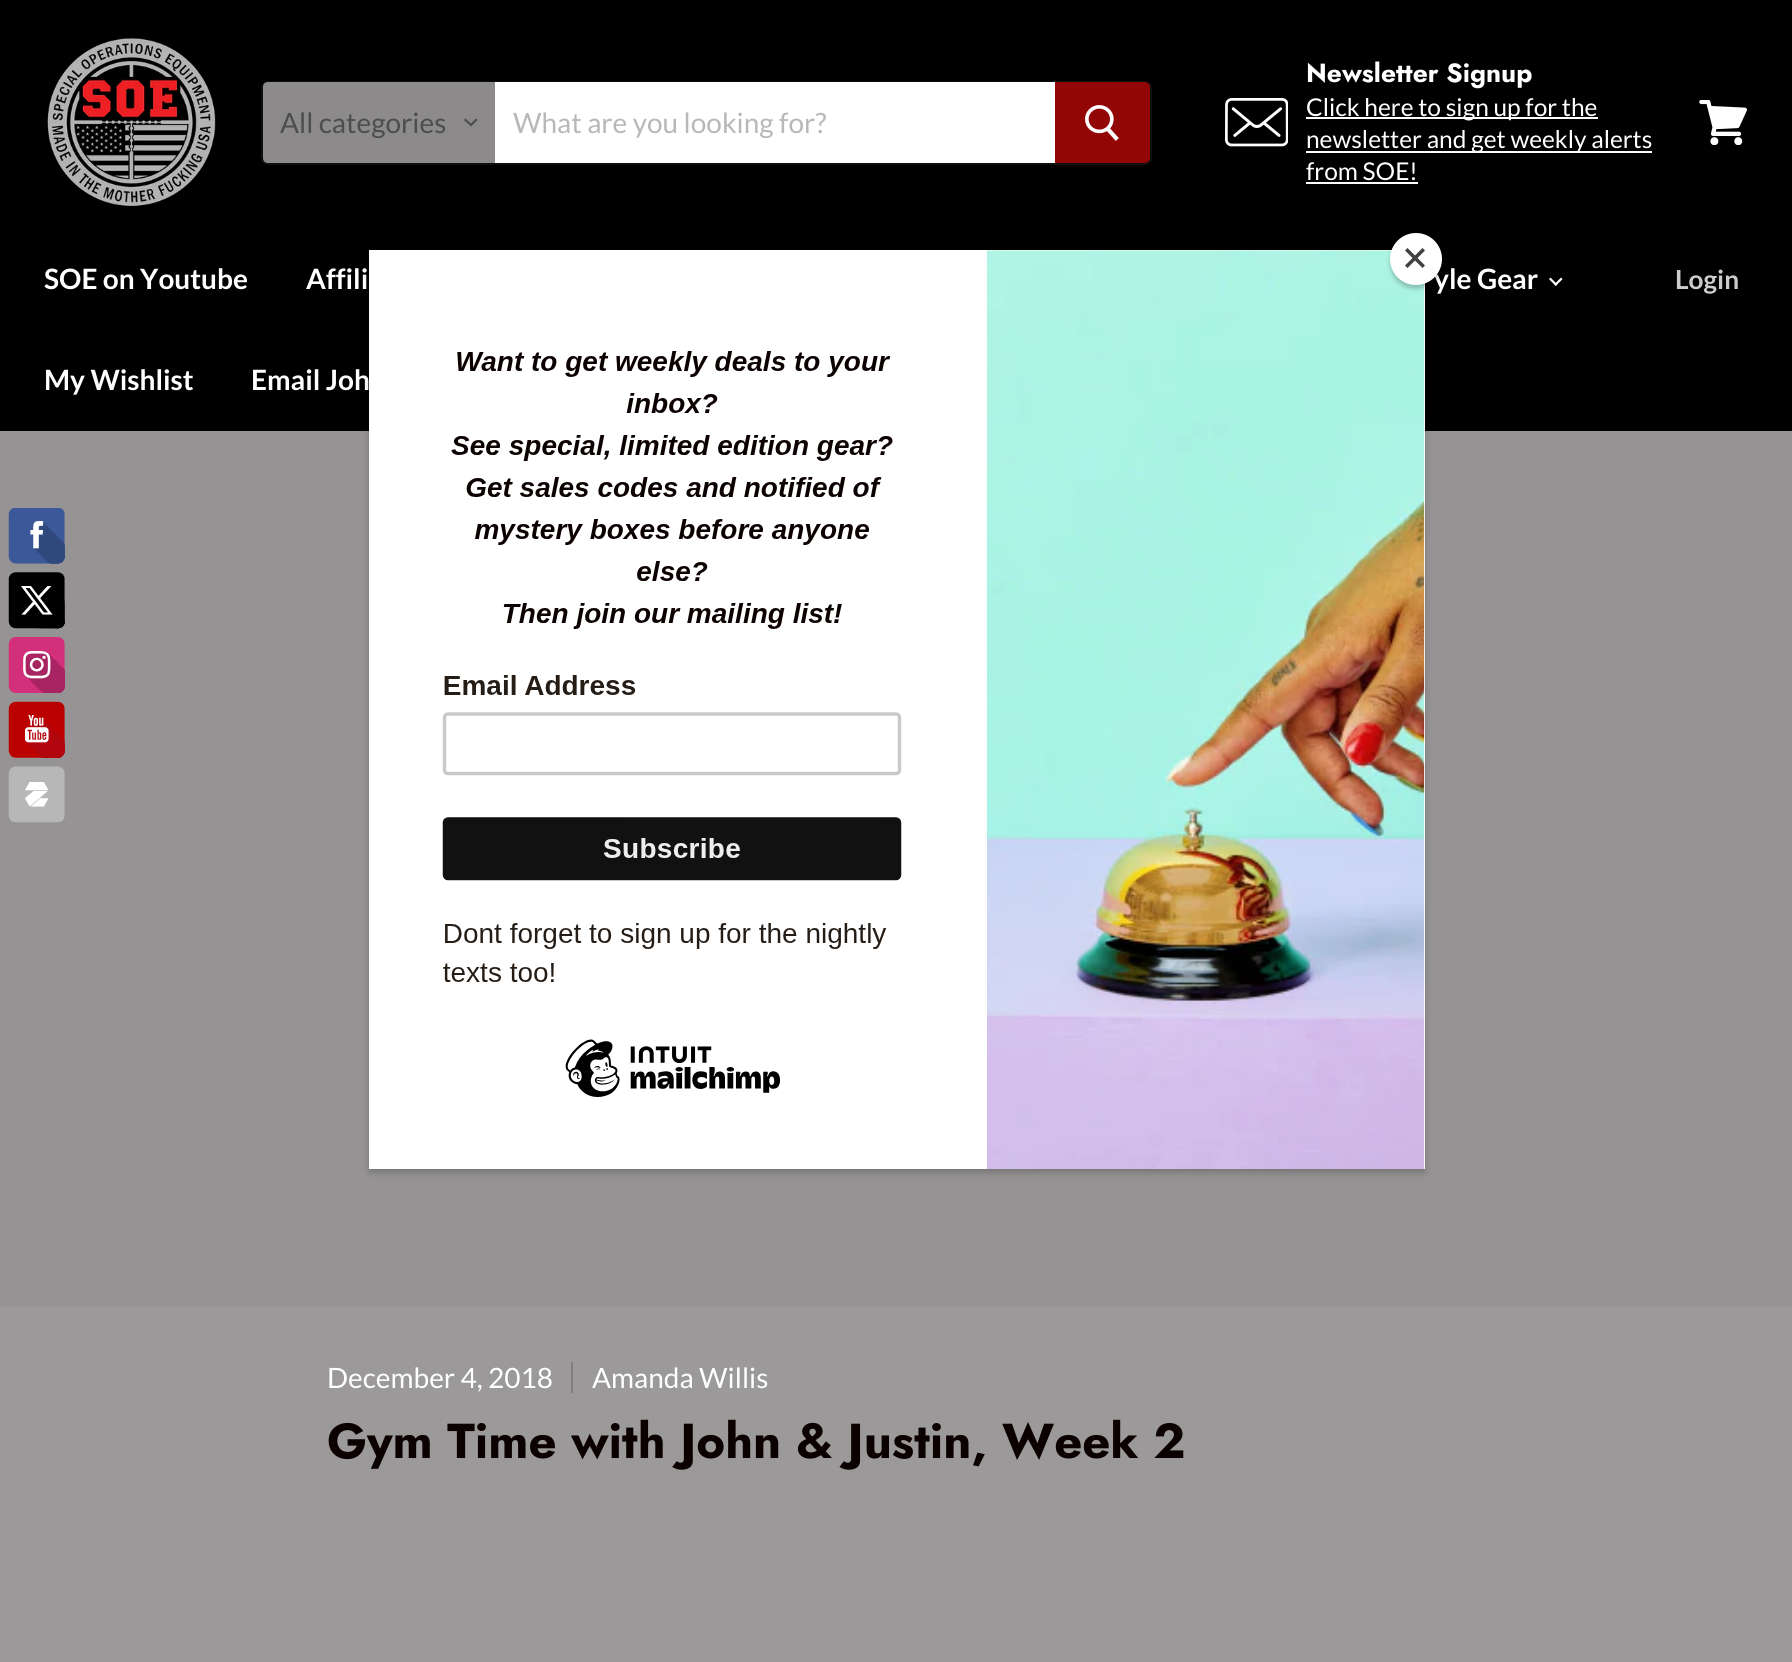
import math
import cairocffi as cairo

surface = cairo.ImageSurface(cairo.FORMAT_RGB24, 1792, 1662)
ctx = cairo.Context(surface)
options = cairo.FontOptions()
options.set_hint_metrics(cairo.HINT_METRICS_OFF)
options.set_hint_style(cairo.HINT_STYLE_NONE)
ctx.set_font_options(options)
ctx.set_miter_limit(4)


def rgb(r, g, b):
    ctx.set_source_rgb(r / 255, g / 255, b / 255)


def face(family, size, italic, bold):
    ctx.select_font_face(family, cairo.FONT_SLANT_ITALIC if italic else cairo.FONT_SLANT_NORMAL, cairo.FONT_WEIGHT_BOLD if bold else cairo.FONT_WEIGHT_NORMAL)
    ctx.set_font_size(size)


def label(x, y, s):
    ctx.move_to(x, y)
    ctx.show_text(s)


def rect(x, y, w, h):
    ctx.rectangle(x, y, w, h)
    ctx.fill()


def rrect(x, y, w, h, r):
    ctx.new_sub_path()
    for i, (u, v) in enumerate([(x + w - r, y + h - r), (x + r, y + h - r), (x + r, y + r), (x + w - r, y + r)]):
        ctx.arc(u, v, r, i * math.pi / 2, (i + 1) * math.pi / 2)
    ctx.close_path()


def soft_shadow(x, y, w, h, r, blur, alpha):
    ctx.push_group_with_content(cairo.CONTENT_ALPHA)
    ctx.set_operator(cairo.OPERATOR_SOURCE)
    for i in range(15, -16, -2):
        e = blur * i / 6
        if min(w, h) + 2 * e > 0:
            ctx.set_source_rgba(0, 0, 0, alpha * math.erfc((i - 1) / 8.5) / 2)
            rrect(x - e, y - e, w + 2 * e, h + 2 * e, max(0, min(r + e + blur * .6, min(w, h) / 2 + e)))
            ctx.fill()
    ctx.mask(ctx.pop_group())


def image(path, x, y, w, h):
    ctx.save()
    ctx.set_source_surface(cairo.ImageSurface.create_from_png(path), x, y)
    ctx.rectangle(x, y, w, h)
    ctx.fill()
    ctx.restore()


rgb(155, 153, 153)
ctx.paint()
rgb(0, 0, 0)
rect(0, 0, 1792, 431)
image('image0.png', 47, 38, 169, 169)
rrect(262, 82, 889, 82, 6)
ctx.set_source_rgba(0.306, 0.302, 0.302, 0.2)
ctx.stroke()
rgb(140, 138, 138)
ctx.new_path()
ctx.move_to(268, 82)
ctx.line_to(495, 82)
ctx.line_to(495, 163)
ctx.line_to(268, 163)
ctx.curve_to(265, 163, 263, 161, 263, 158)
ctx.line_to(263, 87)
ctx.curve_to(263, 84, 265, 82, 268, 82)
ctx.close_path()
ctx.fill()
face('Lato', 28, 0, 0)
rgb(77, 77, 77)
label(280, 133, 'All categories')
ctx.new_path()
ctx.move_to(471, 125)
ctx.line_to(476, 120)
ctx.move_to(471, 125)
ctx.line_to(465.5, 120)
ctx.set_line_width(2.2)
ctx.set_line_cap(cairo.LINE_CAP_SQUARE)
ctx.stroke()
rgb(255, 255, 255)
rect(495, 82, 560, 81)
rgb(184, 184, 184)
label(513, 133, 'What are you looking for?')
rgb(147, 6, 6)
ctx.new_path()
ctx.move_to(1056, 83)
ctx.line_to(1145, 83)
ctx.curve_to(1147, 83, 1149, 85, 1149, 87)
ctx.line_to(1149, 158)
ctx.curve_to(1149, 160, 1147, 162, 1145, 162)
ctx.line_to(1056, 162)
ctx.close_path()
ctx.fill_preserve()
ctx.set_line_width(2)
ctx.set_line_cap(cairo.LINE_CAP_BUTT)
ctx.stroke()
image('image1.png', 1085, 105, 34, 36)
image('image2.png', 1225, 98, 63, 49)
face('Jost', 26.25, 0, 1)
rgb(255, 255, 255)
label(1306, 82, 'Newsletter Signup')
rect(1306, 117, 292, 2)
face('Lato', 24.5, 0, 0)
label(1306, 116, 'Click here to sign up for the')
rect(1306, 151, 346, 2)
label(1306, 148, 'newsletter and get weekly alerts')
label(1306, 180, 'from SOE!')
rect(1306, 182, 112, 2)
image('image3.png', 1699, 100, 48, 45)
face('Lato', 28, 0, 1)
label(44, 289, 'SOE on Youtube')
label(306, 289, 'Affili')
label(1434, 289, 'yle Gear')
image('image4.png', 1549, 277, 14, 9)
label(44, 390, 'My Wishlist')
label(251, 390, 'Email Joh')
face('Lato', 26.25, 0, 1)
rgb(204, 204, 204)
label(1675, 289, 'Login')
rgb(149, 147, 147)
rect(0, 431, 1792, 875)
image('image5.png', 8, 508, 57, 315)
rgb(0, 0, 0)
soft_shadow(369, 254, 1056, 919, 0, 3.5, 0.2)
image('image6.png', 369, 250, 1056, 919)
soft_shadow(1390, 236, 52, 53, 26, 2, 0.2)
rgb(255, 255, 255)
ctx.arc(1416, 259, 26, 0, 2 * math.pi)
ctx.fill()
rgb(65, 65, 65)
ctx.new_path()
ctx.move_to(1422.5, 248)
ctx.line_to(1425, 250.5)
ctx.line_to(1407.5, 268)
ctx.line_to(1405, 265.5)
ctx.close_path()
ctx.fill()
ctx.new_path()
ctx.move_to(1405, 250.5)
ctx.line_to(1407.5, 248)
ctx.line_to(1425, 265.5)
ctx.line_to(1422.5, 268)
ctx.close_path()
ctx.fill()
face('Lato', 28, 0, 0)
rgb(255, 255, 255)
label(327, 1388, 'December 4, 2018')
rgb(128, 126, 126)
rect(571, 1362, 2, 31)
rgb(255, 255, 255)
label(592, 1388, 'Amanda Willis')
face('Jost', 49, 0, 1)
rgb(12, 1, 1)
label(327, 1458, 'Gym Time with John & Justin, Week 2')
surface.write_to_png('render.png')
